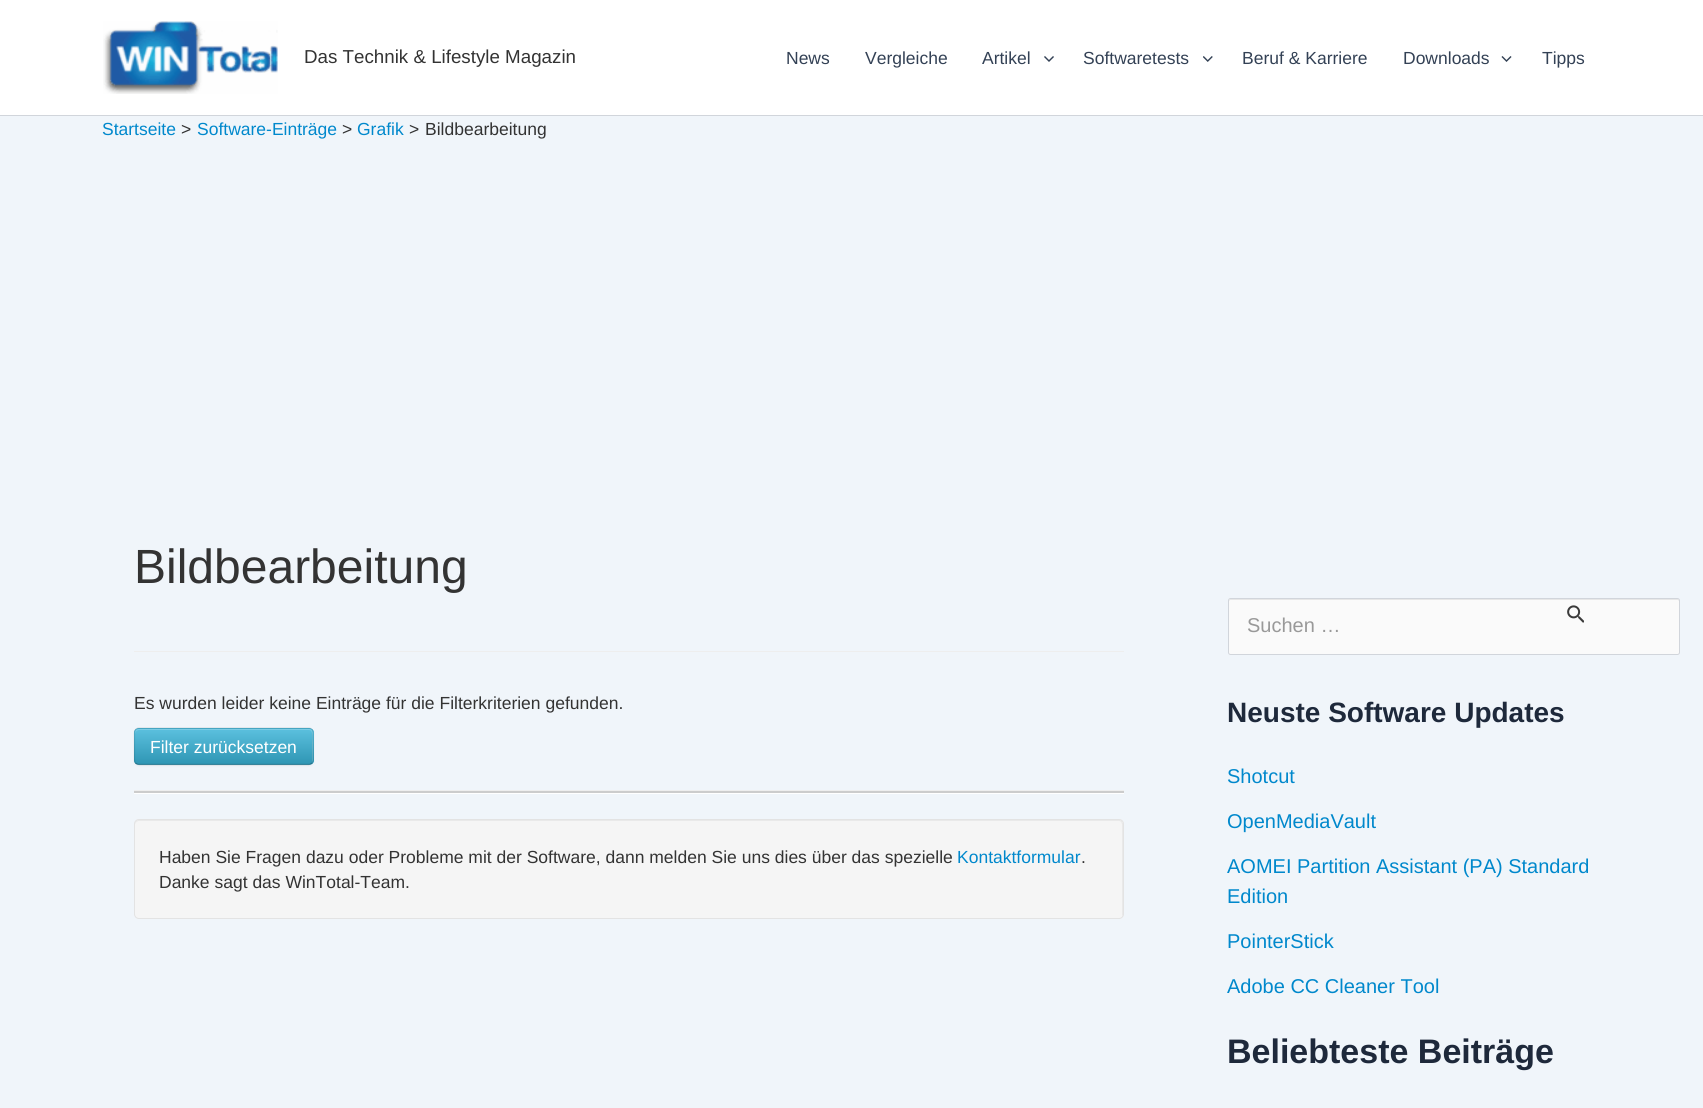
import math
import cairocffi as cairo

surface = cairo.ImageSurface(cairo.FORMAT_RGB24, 1703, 1108)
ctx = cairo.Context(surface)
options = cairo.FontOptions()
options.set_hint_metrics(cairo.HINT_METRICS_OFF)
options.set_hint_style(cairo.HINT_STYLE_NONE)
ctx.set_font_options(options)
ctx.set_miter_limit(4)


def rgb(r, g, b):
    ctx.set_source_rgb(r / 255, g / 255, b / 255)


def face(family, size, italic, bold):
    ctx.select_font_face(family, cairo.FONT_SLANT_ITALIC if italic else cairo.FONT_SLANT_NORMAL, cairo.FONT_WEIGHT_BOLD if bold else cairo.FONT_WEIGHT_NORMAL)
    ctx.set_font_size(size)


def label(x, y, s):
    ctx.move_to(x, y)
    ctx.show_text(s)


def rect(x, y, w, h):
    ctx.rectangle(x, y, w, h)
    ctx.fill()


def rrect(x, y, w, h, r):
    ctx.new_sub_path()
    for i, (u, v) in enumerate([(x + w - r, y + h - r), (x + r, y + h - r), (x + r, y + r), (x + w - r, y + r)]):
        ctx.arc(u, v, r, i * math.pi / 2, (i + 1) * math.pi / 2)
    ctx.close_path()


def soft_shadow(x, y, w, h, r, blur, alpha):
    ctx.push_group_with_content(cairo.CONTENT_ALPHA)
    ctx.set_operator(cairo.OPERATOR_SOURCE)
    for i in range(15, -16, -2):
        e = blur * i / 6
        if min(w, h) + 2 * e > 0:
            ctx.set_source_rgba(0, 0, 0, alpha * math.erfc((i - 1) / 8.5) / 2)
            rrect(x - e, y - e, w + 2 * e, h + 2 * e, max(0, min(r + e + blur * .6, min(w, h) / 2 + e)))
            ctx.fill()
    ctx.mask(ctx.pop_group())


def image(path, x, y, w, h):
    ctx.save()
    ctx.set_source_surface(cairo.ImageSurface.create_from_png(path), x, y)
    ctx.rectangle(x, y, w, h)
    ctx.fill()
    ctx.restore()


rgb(240, 245, 250)
ctx.paint()
rgb(255, 255, 255)
rect(0, 0, 1703, 115)
rgb(209, 213, 219)
rect(0, 115, 1703, 1)
image('image0.png', 103, 21, 175, 73)
face('Liberation Sans', 18.75, 0, 0)
rgb(51, 51, 51)
label(304, 63, 'Das Technik & Lifestyle Magazin')
face('Liberation Sans', 17.5, 0, 0)
rgb(51, 65, 85)
label(786, 64, 'News')
label(865, 64, 'Vergleiche')
label(982, 64, 'Artikel')
image('image1.png', 1044, 56, 10, 6)
label(1083, 64, 'Softwaretests')
image('image2.png', 1203, 56, 10, 6)
label(1242, 64, 'Beruf & Karriere')
label(1403, 64, 'Downloads')
image('image3.png', 1501, 56, 11, 6)
label(1542, 64, 'Tipps')
rgb(0, 136, 204)
label(102, 135, 'Startseite')
rgb(51, 51, 51)
label(181, 135, '>')
rgb(0, 136, 204)
label(197, 135, 'Software-Einträge')
rgb(51, 51, 51)
label(342, 135, '>')
rgb(0, 136, 204)
label(357, 135, 'Grafik')
rgb(51, 51, 51)
label(409, 135, '>')
label(425, 135, 'Bildbearbeitung')
rgb(238, 238, 238)
rect(134, 651, 990, 1)
face('Liberation Sans', 48, 0, 0)
rgb(51, 51, 51)
label(134, 583, 'Bildbearbeitung')
face('Liberation Sans', 17.5, 0, 0)
label(134, 709, 'Es wurden leider keine Einträge für die Filterkriterien gefunden.')
rgb(0, 0, 0)
soft_shadow(134, 729, 180, 37, 5, 1, 0.05)
rgb(73, 175, 205)
rrect(134, 728, 180, 37, 5)
ctx.fill()
ctx.save()
rrect(134, 728, 180, 37, 5)
ctx.clip()
gradient = cairo.LinearGradient(224, 729, 224, 764)
gradient.add_color_stop_rgba(0, 0.357, 0.753, 0.871, 1)
gradient.add_color_stop_rgba(1, 0.184, 0.588, 0.706, 1)
ctx.set_source(gradient)
rect(134, 729, 180, 35)
ctx.restore()
ctx.set_source_rgba(1, 1, 1, 0.2)
ctx.new_path()
ctx.move_to(139, 730)
ctx.line_to(309, 730)
ctx.curve_to(314, 730, 312, 741, 312, 743)
ctx.line_to(312, 763)
ctx.curve_to(312, 762, 313, 761, 313, 760)
ctx.line_to(313, 733)
ctx.curve_to(313, 731, 311, 729, 309, 729)
ctx.line_to(139, 729)
ctx.curve_to(137, 729, 135, 731, 135, 733)
ctx.line_to(135, 734)
ctx.curve_to(135, 732, 137, 730, 139, 730)
ctx.close_path()
ctx.fill()
ctx.new_path()
ctx.move_to(312, 763)
ctx.curve_to(311, 764, 310, 764.5, 309, 764.5)
ctx.line_to(139, 764.5)
ctx.curve_to(137.5, 764.5, 136.5, 764, 135.5, 763)
ctx.set_source_rgba(0, 0, 0, 0.25)
ctx.set_line_width(1.2)
ctx.stroke()
ctx.new_path()
ctx.move_to(135.5, 763)
ctx.curve_to(135, 762.5, 134.5, 761, 134.5, 760)
ctx.line_to(134.5, 732.5)
ctx.curve_to(134.5, 731.5, 135, 730, 135.5, 729.5)
ctx.curve_to(136.5, 728.5, 137.5, 728, 139, 728)
ctx.line_to(309, 728)
ctx.curve_to(310, 728, 311, 728.5, 312, 729.5)
ctx.curve_to(312.5, 730, 313, 731.5, 313, 732.5)
ctx.line_to(313, 760)
ctx.curve_to(313, 761, 312.5, 762.5, 312, 763)
ctx.set_source_rgba(0, 0, 0, 0.1)
ctx.stroke()
rgb(255, 255, 255)
label(150, 753, 'Filter zurücksetzen')
rgb(204, 204, 204)
rect(134, 791, 990, 2)
rgb(238, 238, 238)
rect(134, 790, 990, 1)
rgb(255, 255, 255)
rect(134, 793, 990, 1)
rgb(245, 245, 245)
rrect(134, 819, 990, 100, 5)
ctx.fill()
rgb(233, 233, 233)
ctx.new_path()
ctx.move_to(139, 821)
ctx.line_to(1119, 821)
ctx.curve_to(1121, 821, 1122, 823, 1122, 825)
ctx.line_to(1122, 915)
ctx.line_to(1122, 917)
ctx.curve_to(1122, 916, 1123, 915, 1123, 914)
ctx.line_to(1123, 824)
ctx.curve_to(1123, 822, 1121, 820, 1119, 820)
ctx.line_to(139, 820)
ctx.curve_to(137, 820, 135, 822, 135, 824)
ctx.line_to(135, 825)
ctx.curve_to(135, 823, 137, 821, 139, 821)
ctx.close_path()
ctx.fill()
rrect(134.5, 819.5, 989, 99, 4.5)
rgb(227, 227, 227)
ctx.set_line_width(1)
ctx.stroke()
rgb(51, 51, 51)
label(159, 863, 'Haben Sie Fragen dazu oder Probleme mit der Software, dann melden Sie uns dies über das spezielle')
rgb(0, 136, 204)
label(957, 863, 'Kontaktformular')
rgb(51, 51, 51)
label(1081, 863, '.')
label(159, 888, 'Danke sagt das WinTotal-Team.')
rgb(250, 250, 250)
rrect(1228, 598, 452, 57, 2.5)
ctx.fill()
rgb(231, 231, 231)
ctx.new_path()
ctx.move_to(1230, 600)
ctx.line_to(1678, 600)
ctx.line_to(1679, 601)
ctx.curve_to(1679, 600, 1679, 599, 1678, 599)
ctx.line_to(1230, 599)
ctx.line_to(1229, 600)
ctx.line_to(1229, 601)
ctx.close_path()
ctx.fill()
rrect(1228.5, 598.5, 451, 56, 2)
rgb(209, 213, 219)
ctx.stroke()
image('image4.png', 1567, 605, 17, 18)
face('Liberation Sans', 20, 0, 0)
rgb(153, 153, 153)
label(1247, 632, 'Suchen …')
face('Liberation Sans', 28, 0, 1)
rgb(30, 41, 59)
label(1227, 722, 'Neuste Software Updates')
face('Liberation Sans', 20, 0, 0)
rgb(0, 136, 204)
label(1227, 783, 'Shotcut')
label(1227, 828, 'OpenMediaVault')
label(1227, 873, 'AOMEI Partition Assistant (PA) Standard')
label(1227, 903, 'Edition')
label(1227, 948, 'PointerStick')
label(1227, 993, 'Adobe CC Cleaner Tool')
face('Liberation Sans', 34, 0, 1)
rgb(30, 41, 59)
label(1227, 1063, 'Beliebteste Beiträge')
surface.write_to_png('render.png')
